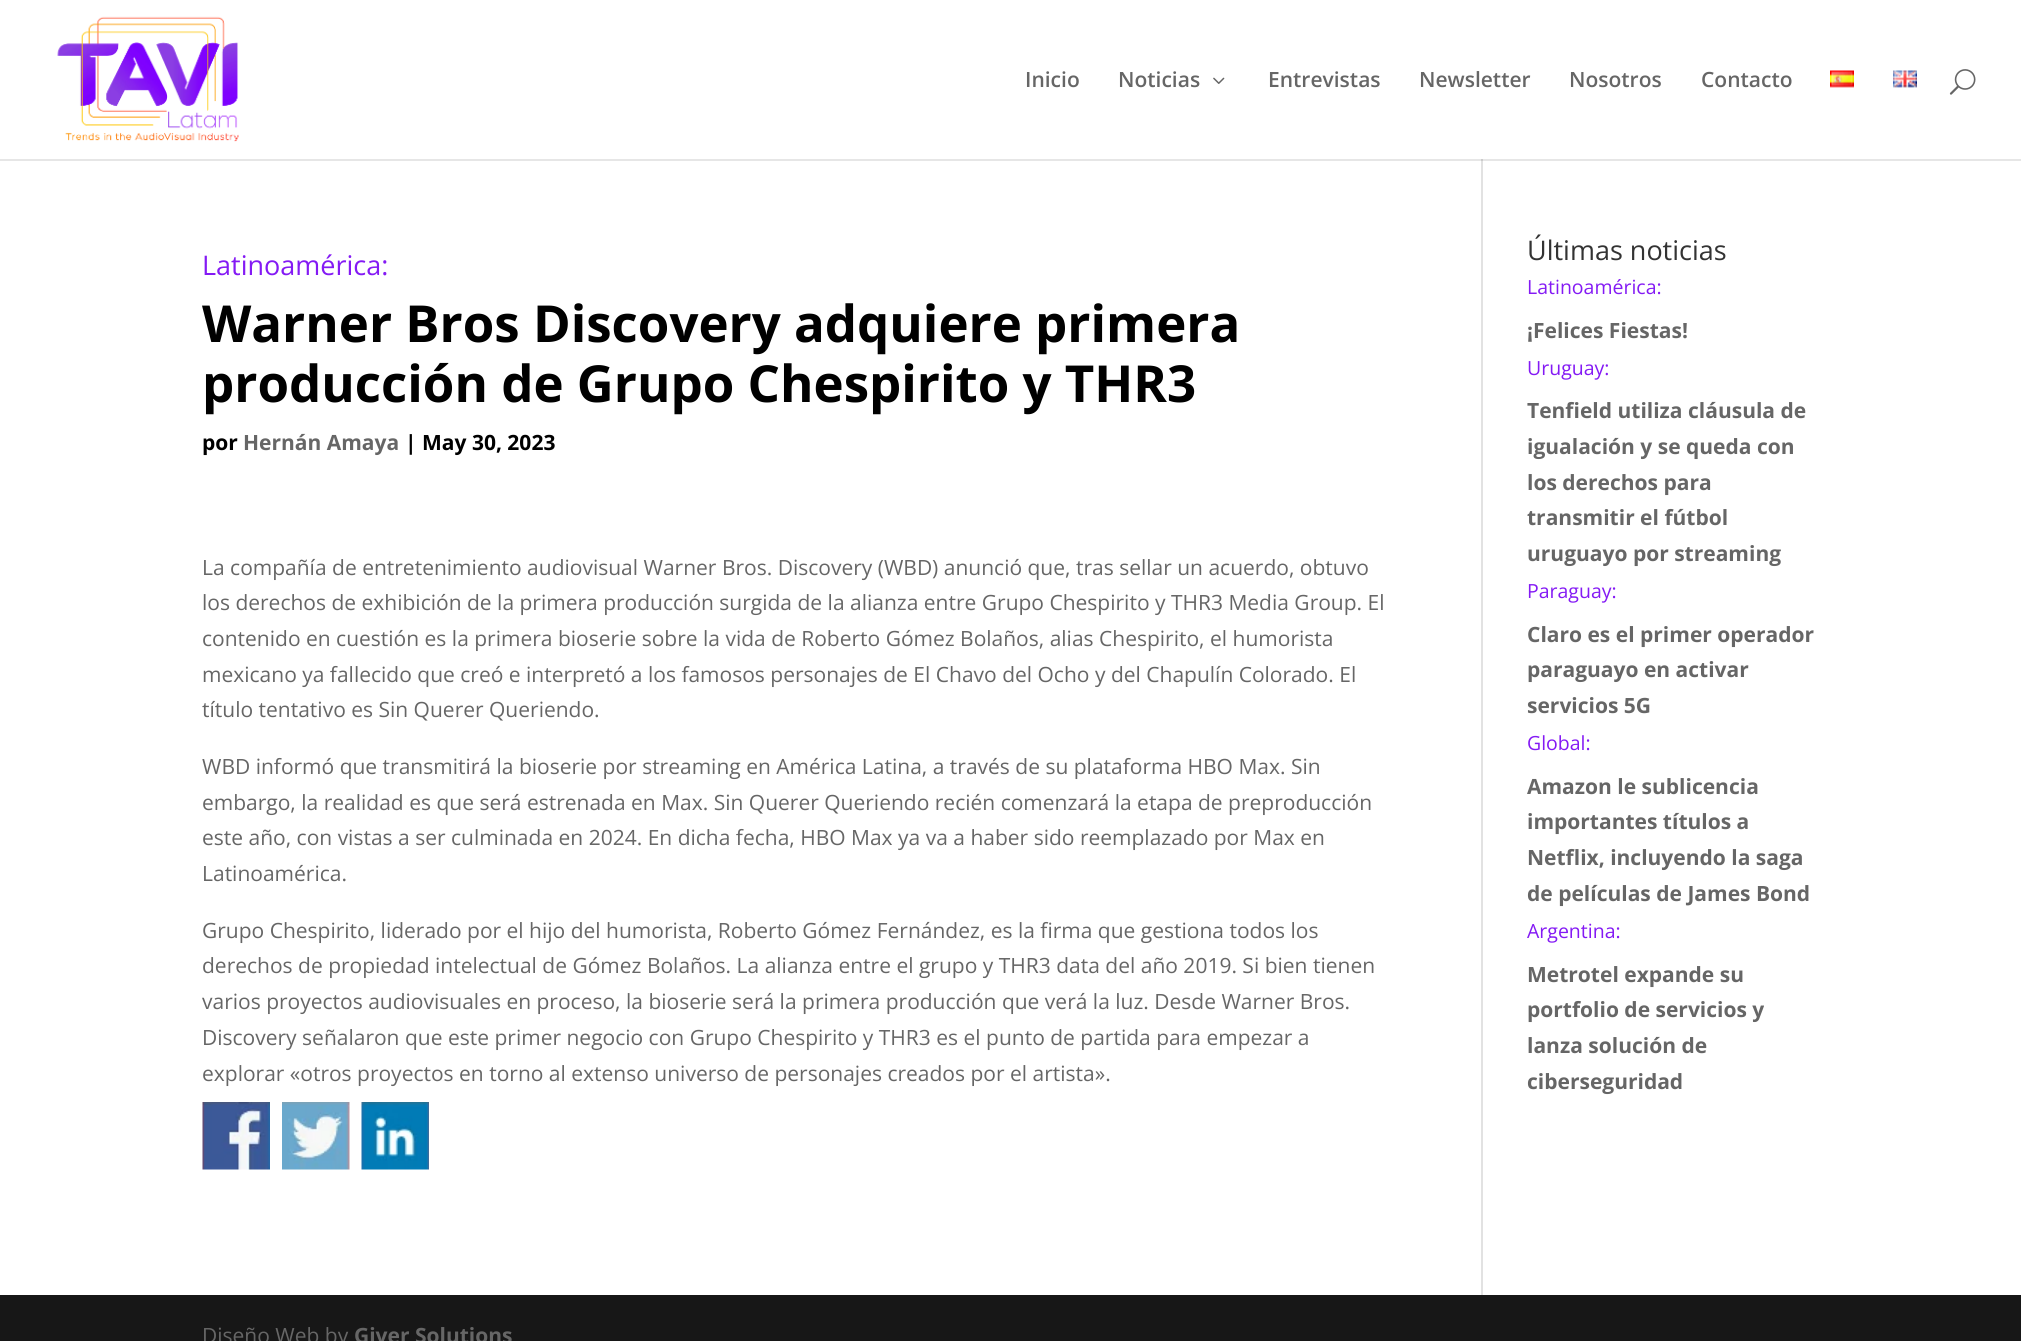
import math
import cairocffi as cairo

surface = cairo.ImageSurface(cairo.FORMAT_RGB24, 2021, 1341)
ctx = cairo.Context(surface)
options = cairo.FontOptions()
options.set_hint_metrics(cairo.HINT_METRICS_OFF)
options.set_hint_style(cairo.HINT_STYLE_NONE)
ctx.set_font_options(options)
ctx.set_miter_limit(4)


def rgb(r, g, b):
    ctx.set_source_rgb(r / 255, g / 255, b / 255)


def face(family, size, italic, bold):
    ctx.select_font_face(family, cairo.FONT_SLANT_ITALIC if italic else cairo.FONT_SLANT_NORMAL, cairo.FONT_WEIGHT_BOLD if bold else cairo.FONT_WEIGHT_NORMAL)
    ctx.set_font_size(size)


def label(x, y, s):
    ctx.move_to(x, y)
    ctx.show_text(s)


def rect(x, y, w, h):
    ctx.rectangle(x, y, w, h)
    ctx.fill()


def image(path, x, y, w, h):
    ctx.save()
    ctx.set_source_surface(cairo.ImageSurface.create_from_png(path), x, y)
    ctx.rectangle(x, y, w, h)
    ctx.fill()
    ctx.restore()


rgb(255, 255, 255)
ctx.paint()
rgb(230, 230, 230)
rect(0, 159, 2021, 2)
image('image0.png', 57, 16, 182, 126)
face('Open Sans SemiBold', 21, 0, 0)
rgb(102, 102, 102)
label(1025, 87, 'Inicio')
label(1118, 87, 'Noticias')
image('image1.png', 1213, 77, 12, 7)
label(1268, 87, 'Entrevistas')
label(1419, 87, 'Newsletter')
label(1569, 87, 'Nosotros')
label(1701, 87, 'Contacto')
image('image2.png', 1830, 70, 24, 18)
image('image3.png', 1893, 70, 24, 18)
image('image4.png', 1949, 69, 27, 26)
rgb(226, 226, 226)
rect(1481, 161, 2, 1134)
rgb(203, 203, 203)
rect(1481, 159, 2, 2)
face('Open Sans', 27, 0, 0)
rgb(132, 26, 244)
label(202, 275, 'Latinoamérica:')
face('Open Sans', 51, 0, 1)
rgb(0, 0, 0)
label(202, 342, 'Warner Bros Discovery adquiere primera')
label(202, 402, 'producción de Grupo Chespirito y THR3')
face('Open Sans', 21, 0, 1)
label(202, 450, 'por')
rgb(102, 102, 102)
label(243, 450, 'Hernán Amaya')
rgb(0, 0, 0)
label(405, 450, '| May 30, 2023')
face('Open Sans', 21, 0, 0)
rgb(102, 102, 102)
label(202, 575, 'La compañía de entretenimiento audiovisual Warner Bros. Discovery (WBD) anunció que, tras sellar un acuerdo, obtuvo')
label(202, 610, 'los derechos de exhibición de la primera producción surgida de la alianza entre Grupo Chespirito y THR3 Media Group. El')
label(202, 646, 'contenido en cuestión es la primera bioserie sobre la vida de Roberto Gómez Bolaños, alias Chespirito, el humorista')
label(202, 682, 'mexicano ya fallecido que creó e interpretó a los famosos personajes de El Chavo del Ocho y del Chapulín Colorado. El')
label(202, 717, 'título tentativo es Sin Querer Queriendo.')
label(202, 774, 'WBD informó que transmitirá la bioserie por streaming en América Latina, a través de su plataforma HBO Max. Sin')
label(202, 810, 'embargo, la realidad es que será estrenada en Max. Sin Querer Queriendo recién comenzará la etapa de preproducción')
label(202, 845, 'este año, con vistas a ser culminada en 2024. En dicha fecha, HBO Max ya va a haber sido reemplazado por Max en')
label(202, 881, 'Latinoamérica.')
label(202, 938, 'Grupo Chespirito, liderado por el hijo del humorista, Roberto Gómez Fernández, es la firma que gestiona todos los')
label(202, 973, 'derechos de propiedad intelectual de Gómez Bolaños. La alianza entre el grupo y THR3 data del año 2019. Si bien tienen')
label(202, 1009, 'varios proyectos audiovisuales en proceso, la bioserie será la primera producción que verá la luz. Desde Warner Bros.')
label(202, 1045, 'Discovery señalaron que este primer negocio con Grupo Chespirito y THR3 es el punto de partida para empezar a')
label(202, 1081, 'explorar «otros proyectos en torno al extenso universo de personajes creados por el artista».')
image('image5.png', 202, 1102, 68, 68)
image('image6.png', 282, 1102, 68, 68)
image('image7.png', 361, 1102, 68, 68)
face('Open Sans', 27, 0, 0)
rgb(51, 51, 51)
label(1527, 260, 'Últimas noticias')
face('Open Sans', 19.5, 0, 0)
rgb(132, 26, 244)
label(1527, 294, 'Latinoamérica:')
face('Open Sans', 21, 0, 1)
rgb(102, 102, 102)
label(1527, 338, '¡Felices Fiestas!')
face('Open Sans', 19.5, 0, 0)
rgb(132, 26, 244)
label(1527, 375, 'Uruguay:')
face('Open Sans', 21, 0, 1)
rgb(102, 102, 102)
label(1527, 418, 'Tenfield utiliza cláusula de')
label(1527, 454, 'igualación y se queda con')
label(1527, 490, 'los derechos para')
label(1527, 525, 'transmitir el fútbol')
label(1527, 561, 'uruguayo por streaming')
face('Open Sans', 19.5, 0, 0)
rgb(132, 26, 244)
label(1527, 598, 'Paraguay:')
face('Open Sans', 21, 0, 1)
rgb(102, 102, 102)
label(1527, 642, 'Claro es el primer operador')
label(1527, 677, 'paraguayo en activar')
label(1527, 713, 'servicios 5G')
face('Open Sans', 19.5, 0, 0)
rgb(132, 26, 244)
label(1527, 750, 'Global:')
face('Open Sans', 21, 0, 1)
rgb(102, 102, 102)
label(1527, 794, 'Amazon le sublicencia')
label(1527, 829, 'importantes títulos a')
label(1527, 865, 'Netflix, incluyendo la saga')
label(1527, 901, 'de películas de James Bond')
face('Open Sans', 19.5, 0, 0)
rgb(132, 26, 244)
label(1527, 938, 'Argentina:')
face('Open Sans', 21, 0, 1)
rgb(102, 102, 102)
label(1527, 982, 'Metrotel expande su')
label(1527, 1017, 'portfolio de servicios y')
label(1527, 1053, 'lanza solución de')
label(1527, 1089, 'ciberseguridad')
rgb(23, 23, 23)
rect(0, 1295, 2021, 46)
face('Open Sans', 21, 0, 0)
rgb(102, 102, 102)
label(202, 1343, 'Diseño Web by')
face('Open Sans', 21, 0, 1)
label(354, 1343, 'Giver Solutions')
surface.write_to_png('render.png')
